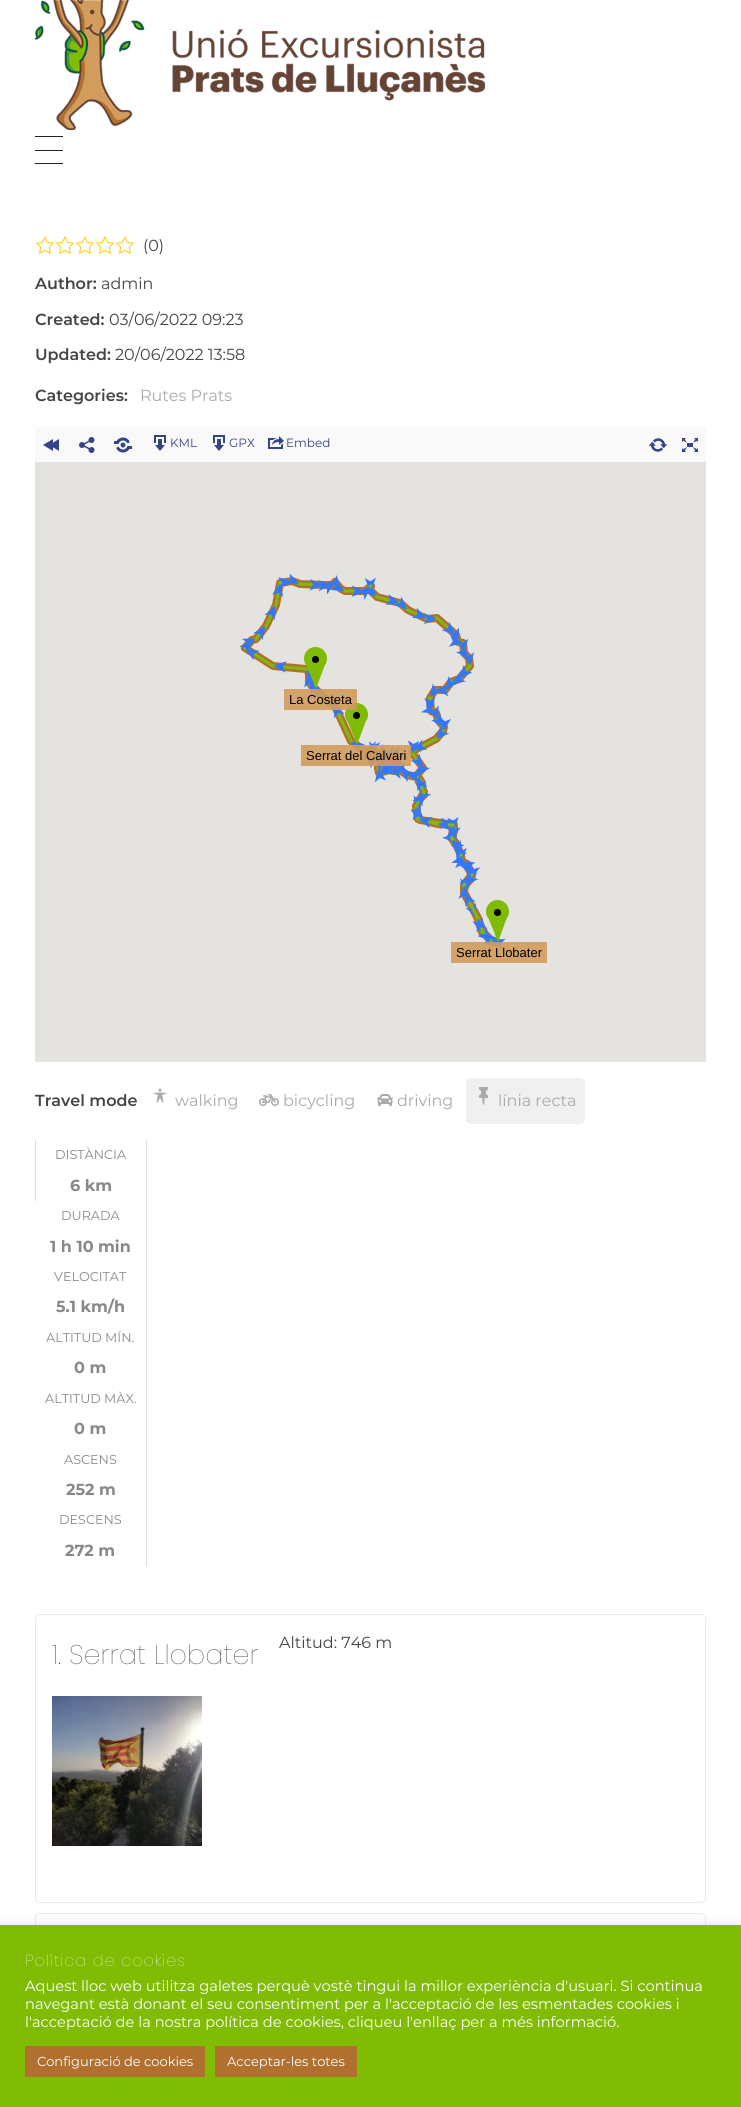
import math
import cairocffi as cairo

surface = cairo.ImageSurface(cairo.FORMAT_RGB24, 741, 2107)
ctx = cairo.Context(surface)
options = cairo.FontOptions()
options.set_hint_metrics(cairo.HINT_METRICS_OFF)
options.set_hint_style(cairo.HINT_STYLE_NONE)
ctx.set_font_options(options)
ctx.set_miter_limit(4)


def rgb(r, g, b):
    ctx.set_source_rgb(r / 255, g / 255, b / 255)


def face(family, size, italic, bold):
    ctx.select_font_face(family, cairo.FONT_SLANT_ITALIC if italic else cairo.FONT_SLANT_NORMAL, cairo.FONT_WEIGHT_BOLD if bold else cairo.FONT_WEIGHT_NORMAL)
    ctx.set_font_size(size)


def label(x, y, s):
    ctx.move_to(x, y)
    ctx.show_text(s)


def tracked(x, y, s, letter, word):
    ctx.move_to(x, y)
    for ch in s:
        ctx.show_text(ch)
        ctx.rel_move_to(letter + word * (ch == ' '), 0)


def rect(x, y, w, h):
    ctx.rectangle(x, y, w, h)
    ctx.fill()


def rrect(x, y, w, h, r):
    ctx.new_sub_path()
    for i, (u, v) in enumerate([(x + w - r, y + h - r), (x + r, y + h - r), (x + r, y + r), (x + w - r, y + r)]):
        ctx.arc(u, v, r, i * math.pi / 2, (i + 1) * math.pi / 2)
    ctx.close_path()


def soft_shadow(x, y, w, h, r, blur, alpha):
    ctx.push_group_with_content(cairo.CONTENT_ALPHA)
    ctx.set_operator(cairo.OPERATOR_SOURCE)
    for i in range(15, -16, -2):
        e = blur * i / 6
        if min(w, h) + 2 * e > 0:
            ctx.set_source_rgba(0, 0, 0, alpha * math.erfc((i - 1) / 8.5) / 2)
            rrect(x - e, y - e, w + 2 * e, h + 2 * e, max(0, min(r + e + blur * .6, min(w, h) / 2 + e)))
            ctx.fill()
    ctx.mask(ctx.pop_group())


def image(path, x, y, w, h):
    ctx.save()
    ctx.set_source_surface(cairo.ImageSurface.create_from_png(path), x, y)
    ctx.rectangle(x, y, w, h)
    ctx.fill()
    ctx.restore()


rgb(255, 255, 255)
ctx.paint()
image('image0.png', 35, 0, 450, 130)
rgb(34, 34, 34)
rect(35, 136, 28, 1)
rect(35, 150, 28, 1)
rect(35, 163, 28, 1)
image('image1.png', 36, 236, 18, 18)
image('image1.png', 56, 236, 18, 18)
image('image1.png', 76, 236, 18, 18)
image('image1.png', 96, 236, 18, 18)
image('image1.png', 116, 236, 18, 18)
face('Montserrat', 16, 0, 0)
rgb(68, 68, 68)
label(143, 251, '(0)')
face('Montserrat SemiBold', 16, 0, 0)
label(35, 289, 'Author:')
face('Montserrat', 16, 0, 0)
label(101, 289, 'admin')
face('Montserrat SemiBold', 16, 0, 0)
label(35, 325, 'Created:')
face('Montserrat', 16, 0, 0)
label(109, 325, '03/06/2022 09:23')
face('Montserrat SemiBold', 16, 0, 0)
label(35, 360, 'Updated:')
face('Montserrat', 16, 0, 0)
label(115, 360, '20/06/2022 13:58')
face('Montserrat SemiBold', 16, 0, 0)
label(35, 401, 'Categories:')
face('Montserrat', 16, 0, 0)
rgb(170, 170, 170)
label(140, 401, 'Rutes Prats')
rgb(249, 249, 249)
rect(35, 427, 671, 35)
image('image2.png', 43, 439, 16, 12)
image('image3.png', 79, 437, 16, 16)
image('image4.png', 114, 437, 18, 16)
image('image5.png', 154, 435, 12, 16)
face('Montserrat', 12, 0, 0)
rgb(51, 68, 136)
label(170, 447, 'KML')
image('image5.png', 213, 435, 12, 16)
label(229, 447, 'GPX')
image('image6.png', 268, 436, 16, 13)
label(286, 447, 'Embed')
image('image7.png', 648, 438, 20, 14)
image('image8.png', 682, 438, 16, 14)
rgb(229, 227, 223)
rect(35, 462, 671, 600)
image('image9.png', 239, 573, 150, 205)
image('image10.png', 389, 594, 86, 184)
image('image11.png', 374, 778, 12, 5)
image('image12.png', 399, 778, 107, 172)
rgb(127, 187, 3)
ctx.arc(315.5, 658.5, 11.5, 0, 2 * math.pi)
ctx.fill()
ctx.new_path()
ctx.move_to(304, 659)
ctx.line_to(327, 659)
ctx.line_to(316, 689)
ctx.close_path()
ctx.fill()
rgb(0, 0, 0)
ctx.arc(315.5, 659.5, 3.5, 0, 2 * math.pi)
ctx.fill()
rgb(127, 187, 3)
ctx.arc(356.5, 714.5, 11.5, 0, 2 * math.pi)
ctx.fill()
ctx.set_source_rgba(0.824, 0.612, 0.365, 0.9)
rect(284, 689, 73, 21)
face('Liberation Sans', 13, 0, 0)
rgb(0, 0, 0)
label(289, 704, 'La Costeta')
rgb(127, 187, 3)
ctx.new_path()
ctx.move_to(345, 715)
ctx.line_to(368, 715)
ctx.line_to(357, 745)
ctx.close_path()
ctx.fill()
rgb(0, 0, 0)
ctx.arc(356.5, 715.5, 3.5, 0, 2 * math.pi)
ctx.fill()
ctx.set_source_rgba(0.824, 0.612, 0.365, 0.9)
rect(301, 745, 110, 21)
rgb(0, 0, 0)
label(306, 760, 'Serrat del Calvari')
rgb(127, 187, 3)
ctx.new_path()
ctx.arc(497.5, 911.5, 11.5, 0, 2 * math.pi)
ctx.fill()
ctx.new_path()
ctx.move_to(486, 912)
ctx.line_to(509, 912)
ctx.line_to(498, 942)
ctx.close_path()
ctx.fill()
rgb(0, 0, 0)
ctx.arc(497.5, 912.5, 3.5, 0, 2 * math.pi)
ctx.fill()
ctx.set_source_rgba(0.824, 0.612, 0.365, 0.9)
rect(451, 942, 96, 21)
rgb(0, 0, 0)
label(456, 957, 'Serrat Llobater')
face('Montserrat SemiBold', 16, 0, 0)
rgb(68, 68, 68)
label(35, 1106, 'Travel mode')
image('image13.png', 153, 1088, 14, 15)
face('Montserrat', 16, 0, 0)
rgb(170, 170, 170)
label(175, 1106, 'walking')
image('image14.png', 259, 1094, 20, 12)
label(283, 1106, 'bicycling')
image('image15.png', 377, 1094, 16, 12)
label(397, 1106, 'driving')
rgb(240, 240, 240)
rrect(466, 1078, 119, 46, 5)
ctx.fill()
image('image16.png', 479, 1087, 9, 18)
rgb(170, 170, 170)
label(498, 1106, 'línia recta')
rgb(221, 221, 221)
rect(146, 1140, 1, 426)
rect(35, 1140, 1, 61)
face('Montserrat', 12.75, 0, 0)
rgb(136, 136, 136)
label(55, 1159, 'DISTÀNCIA')
face('Montserrat', 16, 0, 1)
label(70, 1191, '6 km')
face('Montserrat', 12.75, 0, 0)
label(61, 1220, 'DURADA')
face('Montserrat', 16, 0, 1)
label(50, 1252, '1 h 10 min')
face('Montserrat', 12.75, 0, 0)
label(54, 1281, 'VELOCITAT')
face('Montserrat', 16, 0, 1)
label(56, 1312, '5.1 km/h')
face('Montserrat', 12.75, 0, 0)
label(46, 1342, 'ALTITUD MÍN.')
face('Montserrat', 16, 0, 1)
label(74, 1373, '0 m')
face('Montserrat', 12.75, 0, 0)
label(45, 1403, 'ALTITUD MÀX.')
face('Montserrat', 16, 0, 1)
label(74, 1434, '0 m')
face('Montserrat', 12.75, 0, 0)
label(64, 1464, 'ASCENS')
face('Montserrat', 16, 0, 1)
label(66, 1495, '252 m')
face('Montserrat', 12.75, 0, 0)
label(59, 1524, 'DESCENS')
face('Montserrat', 16, 0, 1)
label(65, 1556, '272 m')
rrect(35.5, 1614.5, 670, 288, 4.5)
rgb(230, 233, 238)
ctx.set_line_width(1)
ctx.stroke()
face('Montserrat', 16, 0, 0)
rgb(68, 68, 68)
label(279, 1648, 'Altitud: 746 m')
face('Poppins Thin', 27, 0, 0)
label(52, 1664, '1. Serrat Llobater')
image('image17.png', 52, 1696, 150, 150)
rrect(35.5, 1913.5, 670, 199, 4.5)
rgb(230, 233, 238)
ctx.stroke()
rgb(172, 171, 171)
soft_shadow(0, 1924, 741, 182, 0, 5, 0.3)
rgb(127, 188, 3)
rect(0, 1925, 741, 182)
face('Poppins Thin', 16, 0, 0)
rgb(255, 255, 255)
tracked(25, 1966, 'Política de cookies', 1, 0)
face('Montserrat', 14.65, 0, 0)
label(25, 1991, 'Aquest lloc web utilitza galetes perquè vostè tingui la millor experiència d\'usuari. Si continua')
label(25, 2009, 'navegant està donant el seu consentiment per a l\'acceptació de les esmentades cookies i')
label(25, 2027, 'l\'acceptació de la nostra política de cookies, cliqueu l\'enllaç per a més informació.')
rgb(177, 112, 47)
rect(25, 2046, 180, 31)
face('Montserrat', 13, 0, 0)
rgb(255, 255, 255)
label(37, 2066, 'Configuració de cookies')
rgb(177, 112, 47)
rect(215, 2046, 142, 31)
rgb(255, 255, 255)
label(227, 2066, 'Acceptar-les totes')
surface.write_to_png('render.png')
